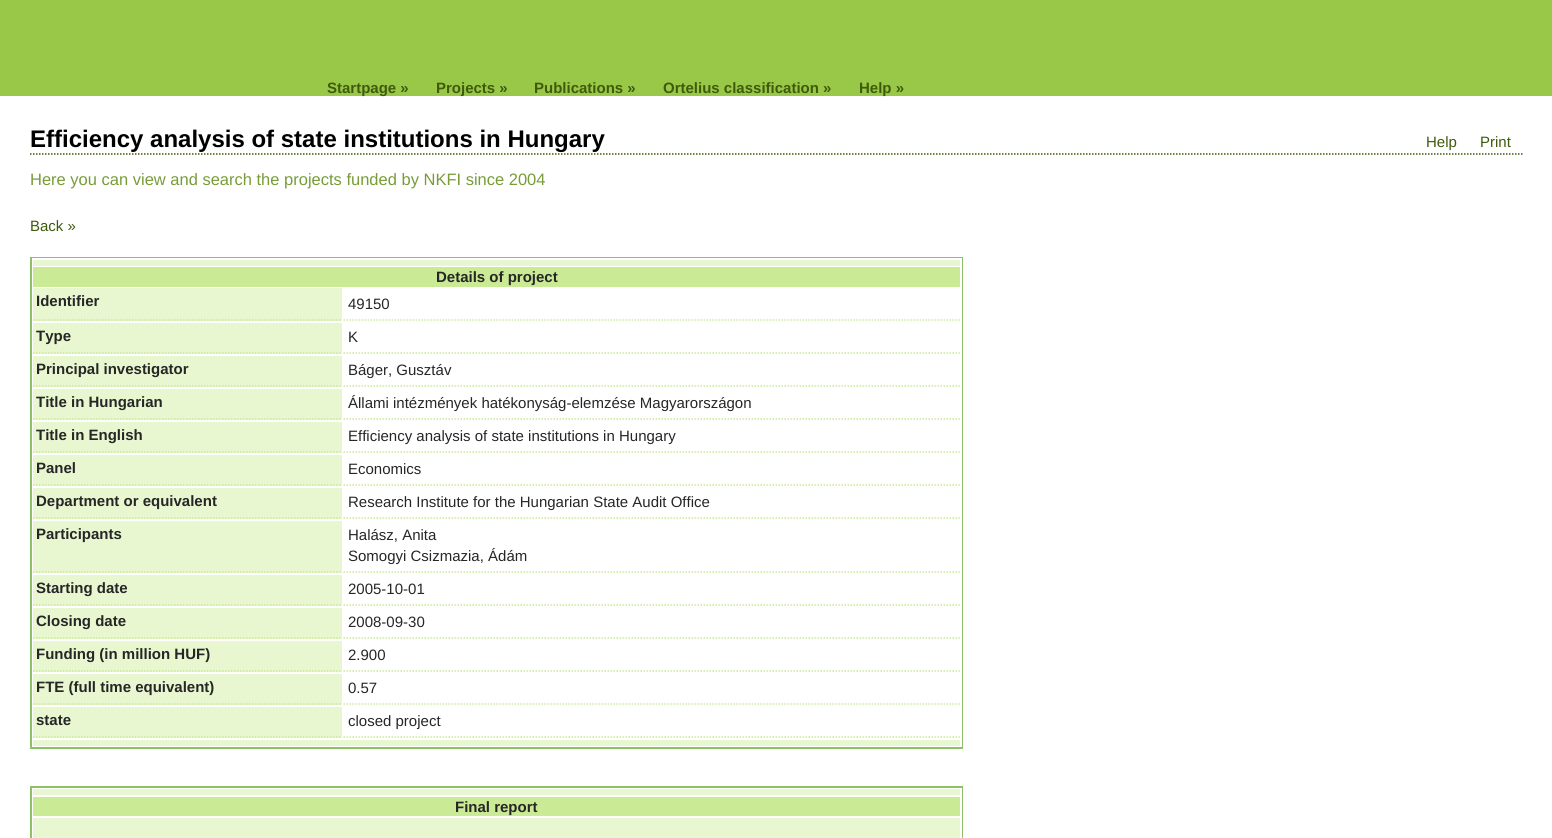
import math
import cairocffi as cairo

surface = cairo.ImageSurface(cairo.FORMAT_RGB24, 1552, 838)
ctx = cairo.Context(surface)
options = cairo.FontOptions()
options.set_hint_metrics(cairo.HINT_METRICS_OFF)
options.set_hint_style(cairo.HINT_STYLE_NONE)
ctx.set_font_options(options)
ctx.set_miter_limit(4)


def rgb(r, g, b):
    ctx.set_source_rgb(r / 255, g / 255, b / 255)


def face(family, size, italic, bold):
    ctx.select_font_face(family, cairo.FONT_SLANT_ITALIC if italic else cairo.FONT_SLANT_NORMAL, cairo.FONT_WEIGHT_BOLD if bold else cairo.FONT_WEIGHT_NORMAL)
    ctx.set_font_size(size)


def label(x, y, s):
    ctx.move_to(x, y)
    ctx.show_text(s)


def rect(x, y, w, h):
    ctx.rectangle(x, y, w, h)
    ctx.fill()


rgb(255, 255, 255)
ctx.paint()
rgb(153, 200, 72)
rect(0, 0, 1552, 96)
face('Liberation Sans', 15, 0, 1)
rgb(62, 91, 11)
label(327, 93, 'Startpage »')
label(436, 93, 'Projects »')
label(534, 93, 'Publications »')
label(663, 93, 'Ortelius classification »')
label(859, 93, 'Help »')
ctx.new_path()
ctx.move_to(30, 154)
ctx.line_to(1522.5, 154)
ctx.set_line_width(1.5)
ctx.set_dash([1.5, 1.5])
ctx.stroke()
face('Liberation Sans', 24, 0, 1)
rgb(0, 0, 0)
label(30, 147, 'Efficiency analysis of state institutions in Hungary')
face('Liberation Sans', 15, 0, 0)
rgb(62, 91, 11)
label(1426, 147, 'Help')
label(1480, 147, 'Print')
face('Liberation Sans', 16.5, 0, 0)
rgb(120, 156, 57)
label(30, 185, 'Here you can view and search the projects funded by NKFI since 2004')
face('Liberation Sans', 15, 0, 0)
rgb(62, 91, 11)
label(30, 231, 'Back »')
ctx.rectangle(31, 258, 931, 490)
rgb(142, 193, 101)
ctx.set_line_width(2)
ctx.set_dash([])
ctx.stroke()
rgb(255, 255, 255)
rect(32, 258, 930, 489)
rgb(233, 247, 208)
rect(33, 260, 927, 6)
rgb(202, 234, 149)
rect(33, 267, 927, 20)
face('Liberation Sans', 15, 0, 1)
rgb(38, 38, 38)
label(436, 282, 'Details of project')
rgb(233, 247, 208)
rect(33, 288, 309, 33)
ctx.new_path()
ctx.move_to(33, 320)
ctx.line_to(342, 320)
rgb(202, 234, 149)
ctx.set_line_width(1.5)
ctx.set_dash([1.5, 1.5])
ctx.stroke()
rgb(38, 38, 38)
label(36, 306, 'Identifier')
ctx.new_path()
ctx.move_to(343.5, 320)
ctx.line_to(960, 320)
rgb(202, 234, 149)
ctx.stroke()
face('Liberation Sans', 15, 0, 0)
rgb(38, 38, 38)
label(348, 309, '49150')
rgb(233, 247, 208)
rect(33, 323, 309, 31)
ctx.new_path()
ctx.move_to(33, 353)
ctx.line_to(342, 353)
rgb(202, 234, 149)
ctx.stroke()
face('Liberation Sans', 15, 0, 1)
rgb(38, 38, 38)
label(36, 341, 'Type')
ctx.new_path()
ctx.move_to(343.5, 353)
ctx.line_to(960, 353)
rgb(202, 234, 149)
ctx.stroke()
face('Liberation Sans', 15, 0, 0)
rgb(38, 38, 38)
label(348, 342, 'K')
rgb(233, 247, 208)
rect(33, 356, 309, 31)
ctx.new_path()
ctx.move_to(33, 386)
ctx.line_to(342, 386)
rgb(202, 234, 149)
ctx.stroke()
face('Liberation Sans', 15, 0, 1)
rgb(38, 38, 38)
label(36, 374, 'Principal investigator')
ctx.new_path()
ctx.move_to(343.5, 386)
ctx.line_to(960, 386)
rgb(202, 234, 149)
ctx.stroke()
face('Liberation Sans', 15, 0, 0)
rgb(38, 38, 38)
label(348, 375, 'Báger, Gusztáv')
rgb(233, 247, 208)
rect(33, 389, 309, 31)
ctx.new_path()
ctx.move_to(33, 419)
ctx.line_to(342, 419)
rgb(202, 234, 149)
ctx.stroke()
face('Liberation Sans', 15, 0, 1)
rgb(38, 38, 38)
label(36, 407, 'Title in Hungarian')
ctx.new_path()
ctx.move_to(343.5, 419)
ctx.line_to(960, 419)
rgb(202, 234, 149)
ctx.stroke()
face('Liberation Sans', 15, 0, 0)
rgb(38, 38, 38)
label(348, 408, 'Állami intézmények hatékonyság-elemzése Magyarországon')
rgb(233, 247, 208)
rect(33, 422, 309, 31)
ctx.new_path()
ctx.move_to(33, 452)
ctx.line_to(342, 452)
rgb(202, 234, 149)
ctx.stroke()
face('Liberation Sans', 15, 0, 1)
rgb(38, 38, 38)
label(36, 440, 'Title in English')
ctx.new_path()
ctx.move_to(343.5, 452)
ctx.line_to(960, 452)
rgb(202, 234, 149)
ctx.stroke()
face('Liberation Sans', 15, 0, 0)
rgb(38, 38, 38)
label(348, 441, 'Efficiency analysis of state institutions in Hungary')
rgb(233, 247, 208)
rect(33, 455, 309, 31)
ctx.new_path()
ctx.move_to(33, 485)
ctx.line_to(342, 485)
rgb(202, 234, 149)
ctx.stroke()
face('Liberation Sans', 15, 0, 1)
rgb(38, 38, 38)
label(36, 473, 'Panel')
ctx.new_path()
ctx.move_to(343.5, 485)
ctx.line_to(960, 485)
rgb(202, 234, 149)
ctx.stroke()
face('Liberation Sans', 15, 0, 0)
rgb(38, 38, 38)
label(348, 474, 'Economics')
rgb(233, 247, 208)
rect(33, 488, 309, 31)
ctx.new_path()
ctx.move_to(33, 518)
ctx.line_to(342, 518)
rgb(202, 234, 149)
ctx.stroke()
face('Liberation Sans', 15, 0, 1)
rgb(38, 38, 38)
label(36, 506, 'Department or equivalent')
ctx.new_path()
ctx.move_to(343.5, 518)
ctx.line_to(960, 518)
rgb(202, 234, 149)
ctx.stroke()
face('Liberation Sans', 15, 0, 0)
rgb(38, 38, 38)
label(348, 507, 'Research Institute for the Hungarian State Audit Office')
rgb(233, 247, 208)
rect(33, 521, 309, 52)
ctx.new_path()
ctx.move_to(33, 572)
ctx.line_to(342, 572)
rgb(202, 234, 149)
ctx.stroke()
face('Liberation Sans', 15, 0, 1)
rgb(38, 38, 38)
label(36, 539, 'Participants')
ctx.new_path()
ctx.move_to(343.5, 572)
ctx.line_to(960, 572)
rgb(202, 234, 149)
ctx.stroke()
face('Liberation Sans', 15, 0, 0)
rgb(38, 38, 38)
label(348, 540, 'Halász, Anita')
label(348, 561, 'Somogyi Csizmazia, Ádám')
rgb(233, 247, 208)
rect(33, 575, 309, 31)
ctx.new_path()
ctx.move_to(33, 605)
ctx.line_to(342, 605)
rgb(202, 234, 149)
ctx.stroke()
face('Liberation Sans', 15, 0, 1)
rgb(38, 38, 38)
label(36, 593, 'Starting date')
ctx.new_path()
ctx.move_to(343.5, 605)
ctx.line_to(960, 605)
rgb(202, 234, 149)
ctx.stroke()
face('Liberation Sans', 15, 0, 0)
rgb(38, 38, 38)
label(348, 594, '2005-10-01')
rgb(233, 247, 208)
rect(33, 608, 309, 31)
ctx.new_path()
ctx.move_to(33, 638)
ctx.line_to(342, 638)
rgb(202, 234, 149)
ctx.stroke()
face('Liberation Sans', 15, 0, 1)
rgb(38, 38, 38)
label(36, 626, 'Closing date')
ctx.new_path()
ctx.move_to(343.5, 638)
ctx.line_to(960, 638)
rgb(202, 234, 149)
ctx.stroke()
face('Liberation Sans', 15, 0, 0)
rgb(38, 38, 38)
label(348, 627, '2008-09-30')
rgb(233, 247, 208)
rect(33, 641, 309, 31)
ctx.new_path()
ctx.move_to(33, 671)
ctx.line_to(342, 671)
rgb(202, 234, 149)
ctx.stroke()
face('Liberation Sans', 15, 0, 1)
rgb(38, 38, 38)
label(36, 659, 'Funding (in million HUF)')
ctx.new_path()
ctx.move_to(343.5, 671)
ctx.line_to(960, 671)
rgb(202, 234, 149)
ctx.stroke()
face('Liberation Sans', 15, 0, 0)
rgb(38, 38, 38)
label(348, 660, '2.900')
rgb(233, 247, 208)
rect(33, 674, 309, 31)
ctx.new_path()
ctx.move_to(33, 704)
ctx.line_to(342, 704)
rgb(202, 234, 149)
ctx.stroke()
face('Liberation Sans', 15, 0, 1)
rgb(38, 38, 38)
label(36, 692, 'FTE (full time equivalent)')
ctx.new_path()
ctx.move_to(343.5, 704)
ctx.line_to(960, 704)
rgb(202, 234, 149)
ctx.stroke()
face('Liberation Sans', 15, 0, 0)
rgb(38, 38, 38)
label(348, 693, '0.57')
rgb(233, 247, 208)
rect(33, 707, 309, 31)
ctx.new_path()
ctx.move_to(33, 737)
ctx.line_to(342, 737)
rgb(202, 234, 149)
ctx.stroke()
face('Liberation Sans', 15, 0, 1)
rgb(38, 38, 38)
label(36, 725, 'state')
ctx.new_path()
ctx.move_to(343.5, 737)
ctx.line_to(960, 737)
rgb(202, 234, 149)
ctx.stroke()
face('Liberation Sans', 15, 0, 0)
rgb(38, 38, 38)
label(348, 726, 'closed project')
rgb(233, 247, 208)
rect(33, 740, 927, 6)
ctx.rectangle(31, 787, 931, 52)
rgb(142, 193, 101)
ctx.set_line_width(2)
ctx.set_dash([])
ctx.stroke()
rgb(255, 255, 255)
rect(961, 788, 1, 50)
rgb(233, 247, 208)
rect(33, 789, 927, 6)
rgb(202, 234, 149)
rect(33, 797, 927, 19)
face('Liberation Sans', 15, 0, 1)
rgb(38, 38, 38)
label(455, 812, 'Final report')
rgb(233, 247, 208)
rect(33, 818, 927, 20)
surface.write_to_png('render.png')
